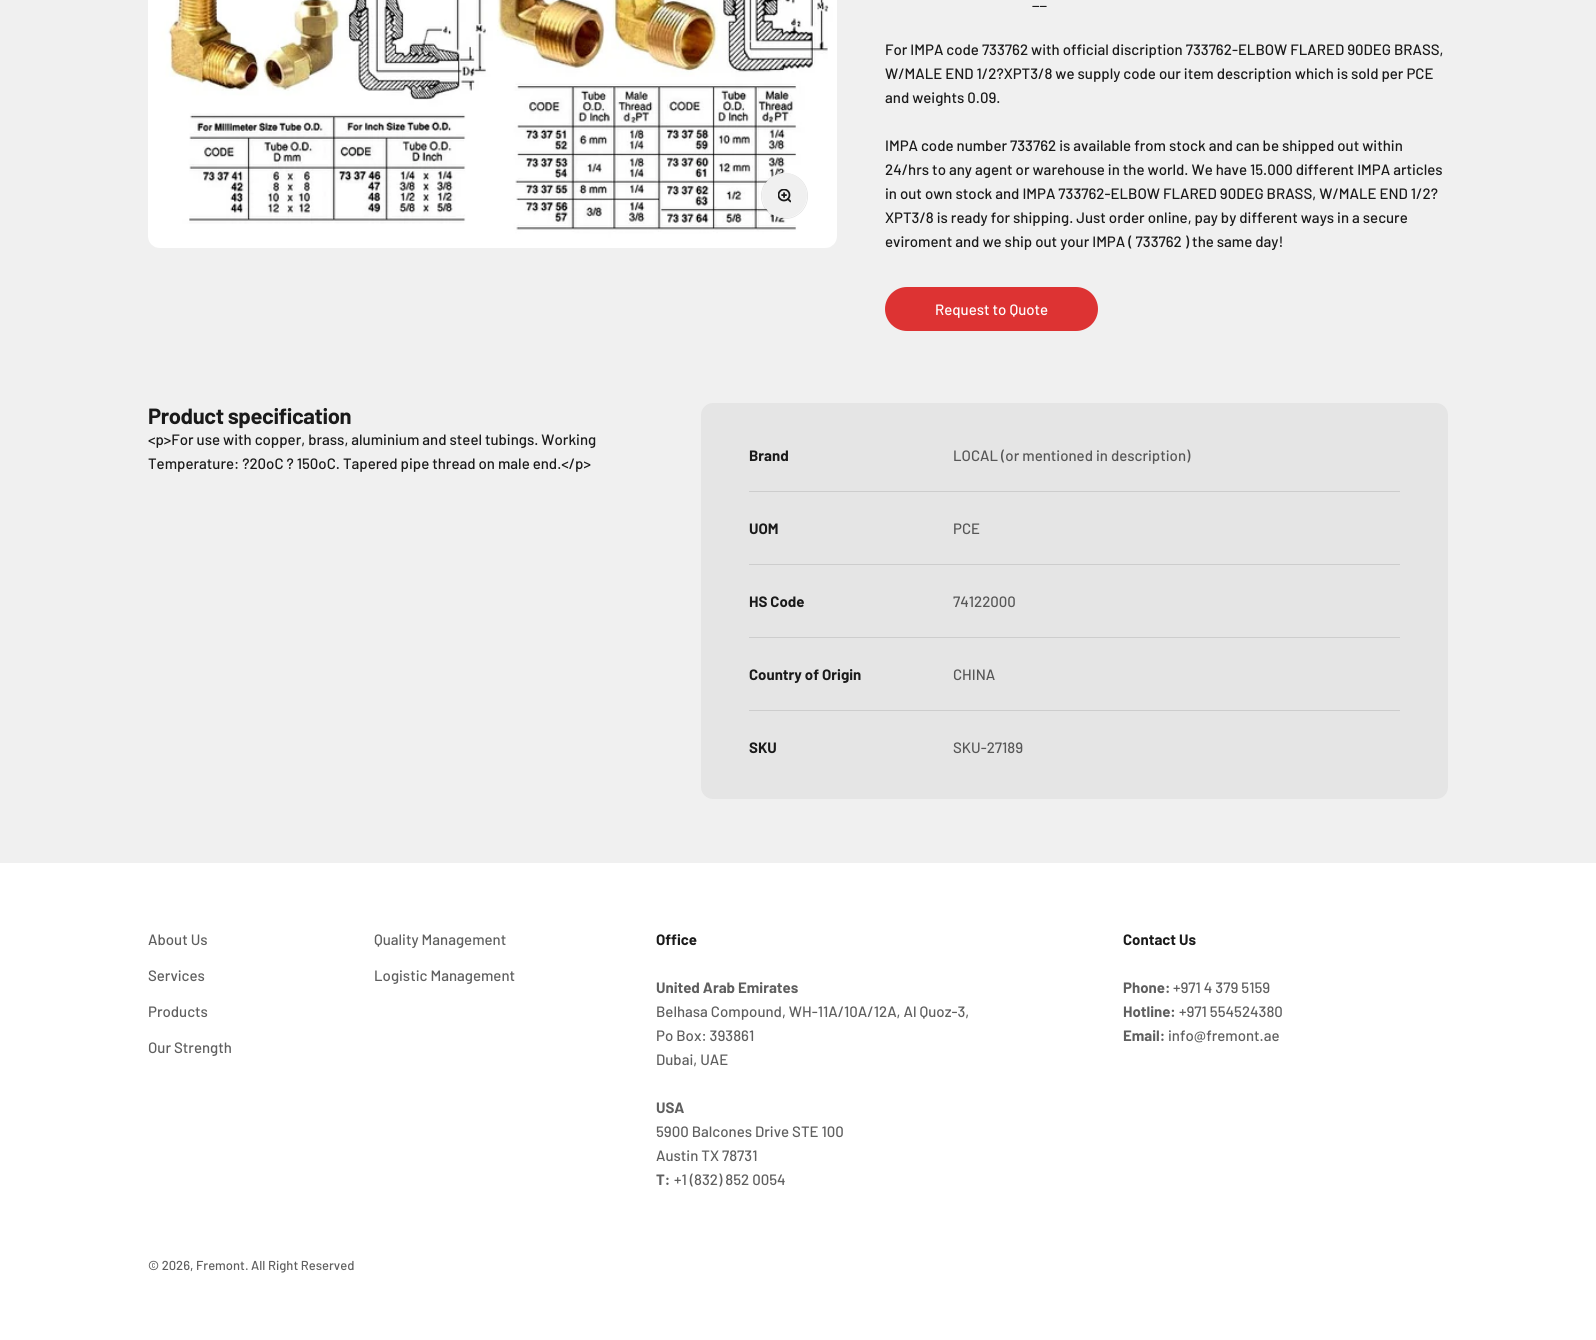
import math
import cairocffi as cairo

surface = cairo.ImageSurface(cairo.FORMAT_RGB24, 1596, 1340)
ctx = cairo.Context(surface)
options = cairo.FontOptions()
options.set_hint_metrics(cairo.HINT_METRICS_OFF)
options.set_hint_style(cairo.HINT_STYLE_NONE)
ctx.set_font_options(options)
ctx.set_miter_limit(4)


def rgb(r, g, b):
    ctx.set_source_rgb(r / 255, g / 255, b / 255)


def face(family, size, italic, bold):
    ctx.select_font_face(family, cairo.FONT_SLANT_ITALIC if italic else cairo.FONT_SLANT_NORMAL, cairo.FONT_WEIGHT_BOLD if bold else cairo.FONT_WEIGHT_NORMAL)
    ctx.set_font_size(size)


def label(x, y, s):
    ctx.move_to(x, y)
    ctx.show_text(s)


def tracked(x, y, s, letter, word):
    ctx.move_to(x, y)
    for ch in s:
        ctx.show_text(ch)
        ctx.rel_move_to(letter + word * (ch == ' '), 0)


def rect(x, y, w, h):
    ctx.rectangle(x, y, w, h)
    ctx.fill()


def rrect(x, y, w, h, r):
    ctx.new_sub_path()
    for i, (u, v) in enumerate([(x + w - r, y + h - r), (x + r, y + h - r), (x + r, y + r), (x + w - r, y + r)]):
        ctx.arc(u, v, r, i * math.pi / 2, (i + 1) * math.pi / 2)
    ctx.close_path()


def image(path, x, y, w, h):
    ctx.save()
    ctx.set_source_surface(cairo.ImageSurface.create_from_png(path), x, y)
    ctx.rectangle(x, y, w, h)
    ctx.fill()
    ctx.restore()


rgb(240, 240, 240)
ctx.paint()
image('image0.png', 148, 0, 689, 248)
rrect(761.4, 173.4, 46.2, 45.2, 22.6)
ctx.set_source_rgba(0.102, 0.102, 0.102, 0.12)
ctx.set_line_width(0.8)
ctx.stroke()
rgb(240, 240, 240)
ctx.arc(784.5, 195.5, 22.5, 0, 2 * math.pi)
ctx.fill()
image('image1.png', 778, 189, 13, 14)
face('Barlow Medium', 15, 0, 0)
rgb(26, 26, 26)
label(1032, 7, '__')
label(885, 55, 'For IMPA code 733762 with official discription 733762-ELBOW FLARED 90DEG BRASS,')
label(885, 79, 'W/MALE END 1/2?XPT3/8 we supply code our item description which is sold per PCE')
label(885, 103, 'and weights 0.09.')
label(885, 151, 'IMPA code number 733762 is available from stock and can be shipped out within')
label(885, 175, '24/hrs to any agent or warehouse in the world. We have 15.000 different IMPA articles')
label(885, 199, 'in out own stock and IMPA 733762-ELBOW FLARED 90DEG BRASS, W/MALE END 1/2?')
label(885, 223, 'XPT3/8 is ready for shipping. Just order online, pay by different ways in a secure')
label(885, 247, 'eviroment and we ship out your IMPA ( 733762 ) the same day!')
rgb(221, 51, 51)
rrect(885, 287, 213, 44, 22)
ctx.fill()
rgb(255, 255, 255)
label(935, 315, 'Request to Quote')
face('Barlow', 22, 0, 1)
rgb(26, 26, 26)
tracked(148, 424, 'Product specification', -0.4, 0)
face('Barlow Medium', 15, 0, 0)
label(148, 445, '<p>For use with copper, brass, aluminium and steel tubings. Working')
label(148, 469, 'Temperature: ?20oC ? 150oC. Tapered pipe thread on male end.</p>')
rgb(229, 229, 229)
rrect(701, 403, 747, 396, 12)
ctx.fill()
face('Barlow', 15, 0, 1)
rgb(26, 26, 26)
label(749, 461, 'Brand')
face('Barlow Medium', 15, 0, 0)
rgb(87, 87, 87)
label(953, 461, 'LOCAL (or mentioned in description)')
rgb(205, 205, 205)
rect(749, 491, 651, 1)
face('Barlow', 15, 0, 1)
rgb(26, 26, 26)
label(749, 534, 'UOM')
face('Barlow Medium', 15, 0, 0)
rgb(87, 87, 87)
label(953, 534, 'PCE')
rgb(205, 205, 205)
rect(749, 564, 651, 1)
face('Barlow', 15, 0, 1)
rgb(26, 26, 26)
label(749, 607, 'HS Code')
face('Barlow Medium', 15, 0, 0)
rgb(87, 87, 87)
label(953, 607, '74122000')
rgb(205, 205, 205)
rect(749, 637, 651, 1)
face('Barlow', 15, 0, 1)
rgb(26, 26, 26)
label(749, 680, 'Country of Origin')
face('Barlow Medium', 15, 0, 0)
rgb(87, 87, 87)
label(953, 680, 'CHINA')
rgb(205, 205, 205)
rect(749, 710, 651, 1)
face('Barlow', 15, 0, 1)
rgb(26, 26, 26)
label(749, 753, 'SKU')
face('Barlow Medium', 15, 0, 0)
rgb(87, 87, 87)
label(953, 753, 'SKU-27189')
rgb(255, 255, 255)
rect(0, 863, 1596, 477)
rgb(95, 95, 95)
label(148, 945, 'About Us')
label(148, 981, 'Services')
label(148, 1017, 'Products')
label(148, 1053, 'Our Strength')
label(374, 945, 'Quality Management')
label(374, 981, 'Logistic Management')
face('Barlow', 15, 0, 1)
rgb(26, 26, 26)
label(656, 945, 'Office')
rgb(95, 95, 95)
label(656, 993, 'United Arab Emirates')
face('Barlow Medium', 15, 0, 0)
label(656, 1017, 'Belhasa Compound, WH-11A/10A/12A, Al Quoz-3,')
label(656, 1041, 'Po Box: 393861')
label(656, 1065, 'Dubai, UAE')
face('Barlow', 15, 0, 1)
label(656, 1113, 'USA')
face('Barlow Medium', 15, 0, 0)
label(656, 1137, '5900 Balcones Drive STE 100')
label(656, 1161, 'Austin TX 78731')
face('Barlow', 15, 0, 1)
label(656, 1185, 'T:')
face('Barlow Medium', 15, 0, 0)
label(674, 1185, '+1 (832) 852 0054')
face('Barlow', 15, 0, 1)
rgb(26, 26, 26)
label(1123, 945, 'Contact Us')
rgb(95, 95, 95)
label(1123, 993, 'Phone:')
face('Barlow Medium', 15, 0, 0)
label(1173, 993, '+971 4 379 5159')
face('Barlow', 15, 0, 1)
label(1123, 1017, 'Hotline:')
face('Barlow Medium', 15, 0, 0)
label(1179, 1017, '+971 554524380')
face('Barlow', 15, 0, 1)
label(1123, 1041, 'Email:')
face('Barlow Medium', 15, 0, 0)
label(1168, 1041, 'info@fremont.ae')
face('Barlow Medium', 13, 0, 0)
label(148, 1270, '© 2026, Fremont. All Right Reserved')
surface.write_to_png('render.png')
